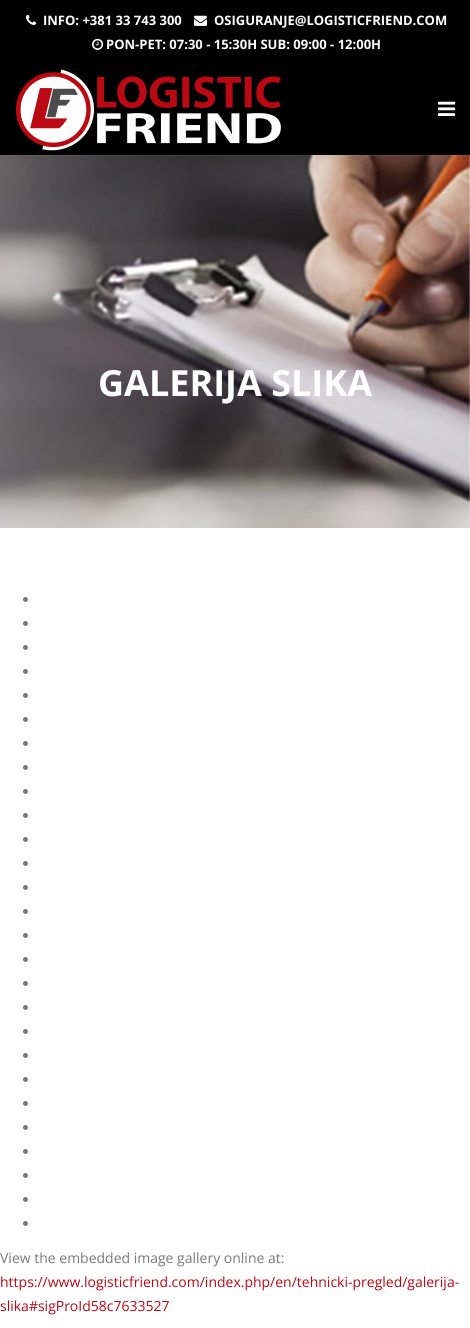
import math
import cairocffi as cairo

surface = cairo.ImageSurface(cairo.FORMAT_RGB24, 470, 1328)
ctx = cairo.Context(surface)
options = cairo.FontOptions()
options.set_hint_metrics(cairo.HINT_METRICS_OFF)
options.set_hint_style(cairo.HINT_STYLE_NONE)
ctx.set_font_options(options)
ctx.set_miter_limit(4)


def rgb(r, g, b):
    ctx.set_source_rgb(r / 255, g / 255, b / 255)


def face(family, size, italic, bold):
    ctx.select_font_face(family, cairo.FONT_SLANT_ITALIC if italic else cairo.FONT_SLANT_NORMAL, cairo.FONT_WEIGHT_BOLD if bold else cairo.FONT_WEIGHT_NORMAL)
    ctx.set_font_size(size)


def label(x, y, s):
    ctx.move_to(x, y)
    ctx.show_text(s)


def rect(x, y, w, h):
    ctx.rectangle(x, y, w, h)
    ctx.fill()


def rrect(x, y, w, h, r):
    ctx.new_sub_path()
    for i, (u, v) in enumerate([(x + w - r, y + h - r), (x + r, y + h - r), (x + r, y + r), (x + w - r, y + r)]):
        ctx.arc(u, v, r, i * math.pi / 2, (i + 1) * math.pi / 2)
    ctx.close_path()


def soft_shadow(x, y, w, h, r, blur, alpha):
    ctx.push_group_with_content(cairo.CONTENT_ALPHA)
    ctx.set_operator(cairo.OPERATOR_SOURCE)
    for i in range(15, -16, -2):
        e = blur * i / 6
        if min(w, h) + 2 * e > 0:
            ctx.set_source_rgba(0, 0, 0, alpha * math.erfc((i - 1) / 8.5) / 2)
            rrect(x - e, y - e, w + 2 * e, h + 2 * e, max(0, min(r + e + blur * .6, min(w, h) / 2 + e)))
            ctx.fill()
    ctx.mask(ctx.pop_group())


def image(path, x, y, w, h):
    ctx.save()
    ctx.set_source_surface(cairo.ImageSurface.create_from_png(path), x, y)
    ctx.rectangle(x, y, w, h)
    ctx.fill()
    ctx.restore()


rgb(255, 255, 255)
ctx.paint()
rgb(0, 0, 0)
rect(0, 0, 470, 65)
image('image0.png', 26, 14, 11, 11)
face('Open Sans', 13, 0, 1)
rgb(255, 255, 255)
label(43, 25, 'INFO: +381 33 743 300')
image('image1.png', 194, 15, 13, 11)
label(214, 25, 'OSIGURANJE@LOGISTICFRIEND.COM')
image('image2.png', 92, 38, 12, 12)
label(106, 49, 'PON-PET: 07:30 - 15:30H SUB: 09:00 - 12:00H')
image('image5.png', 0, 155, 470, 373)
rgb(0, 0, 0)
soft_shadow(0, 68, 470, 90, 0, 1.5, 0.05)
rgb(0, 0, 0)
rect(0, 65, 470, 90)
image('image3.png', 15, 69, 266, 82)
image('image4.png', 438, 101, 18, 15)
face('Open Sans', 36, 0, 1)
rgb(255, 255, 255)
label(98, 396, 'GALERIJA SLIKA')
rgb(121, 121, 121)
ctx.new_path()
ctx.arc(25.5, 599.5, 2.5, 0, 2 * math.pi)
ctx.fill()
ctx.arc(25.5, 623.5, 2.5, 0, 2 * math.pi)
ctx.fill()
ctx.arc(25.5, 647.5, 2.5, 0, 2 * math.pi)
ctx.fill()
ctx.arc(25.5, 671.5, 2.5, 0, 2 * math.pi)
ctx.fill()
ctx.arc(25.5, 695.5, 2.5, 0, 2 * math.pi)
ctx.fill()
ctx.arc(25.5, 719.5, 2.5, 0, 2 * math.pi)
ctx.fill()
ctx.arc(25.5, 743.5, 2.5, 0, 2 * math.pi)
ctx.fill()
ctx.arc(25.5, 767.5, 2.5, 0, 2 * math.pi)
ctx.fill()
ctx.arc(25.5, 791.5, 2.5, 0, 2 * math.pi)
ctx.fill()
ctx.arc(25.5, 815.5, 2.5, 0, 2 * math.pi)
ctx.fill()
ctx.arc(25.5, 839.5, 2.5, 0, 2 * math.pi)
ctx.fill()
ctx.arc(25.5, 863.5, 2.5, 0, 2 * math.pi)
ctx.fill()
ctx.arc(25.5, 887.5, 2.5, 0, 2 * math.pi)
ctx.fill()
ctx.arc(25.5, 911.5, 2.5, 0, 2 * math.pi)
ctx.fill()
ctx.arc(25.5, 935.5, 2.5, 0, 2 * math.pi)
ctx.fill()
ctx.arc(25.5, 959.5, 2.5, 0, 2 * math.pi)
ctx.fill()
ctx.arc(25.5, 983.5, 2.5, 0, 2 * math.pi)
ctx.fill()
ctx.arc(25.5, 1007.5, 2.5, 0, 2 * math.pi)
ctx.fill()
ctx.arc(25.5, 1031.5, 2.5, 0, 2 * math.pi)
ctx.fill()
ctx.arc(25.5, 1055.5, 2.5, 0, 2 * math.pi)
ctx.fill()
ctx.arc(25.5, 1079.5, 2.5, 0, 2 * math.pi)
ctx.fill()
ctx.arc(25.5, 1103.5, 2.5, 0, 2 * math.pi)
ctx.fill()
ctx.arc(25.5, 1127.5, 2.5, 0, 2 * math.pi)
ctx.fill()
ctx.arc(25.5, 1151.5, 2.5, 0, 2 * math.pi)
ctx.fill()
ctx.arc(25.5, 1175.5, 2.5, 0, 2 * math.pi)
ctx.fill()
ctx.arc(25.5, 1199.5, 2.5, 0, 2 * math.pi)
ctx.fill()
ctx.arc(25.5, 1223.5, 2.5, 0, 2 * math.pi)
ctx.fill()
face('Open Sans', 14, 0, 0)
label(0, 1263, 'View the embedded image gallery online at:')
rgb(186, 9, 19)
label(0, 1287, 'https://www.logisticfriend.com/index.php/en/tehnicki-pregled/galerija-')
label(0, 1311, 'slika#sigProId58c7633527')
surface.write_to_png('render.png')
